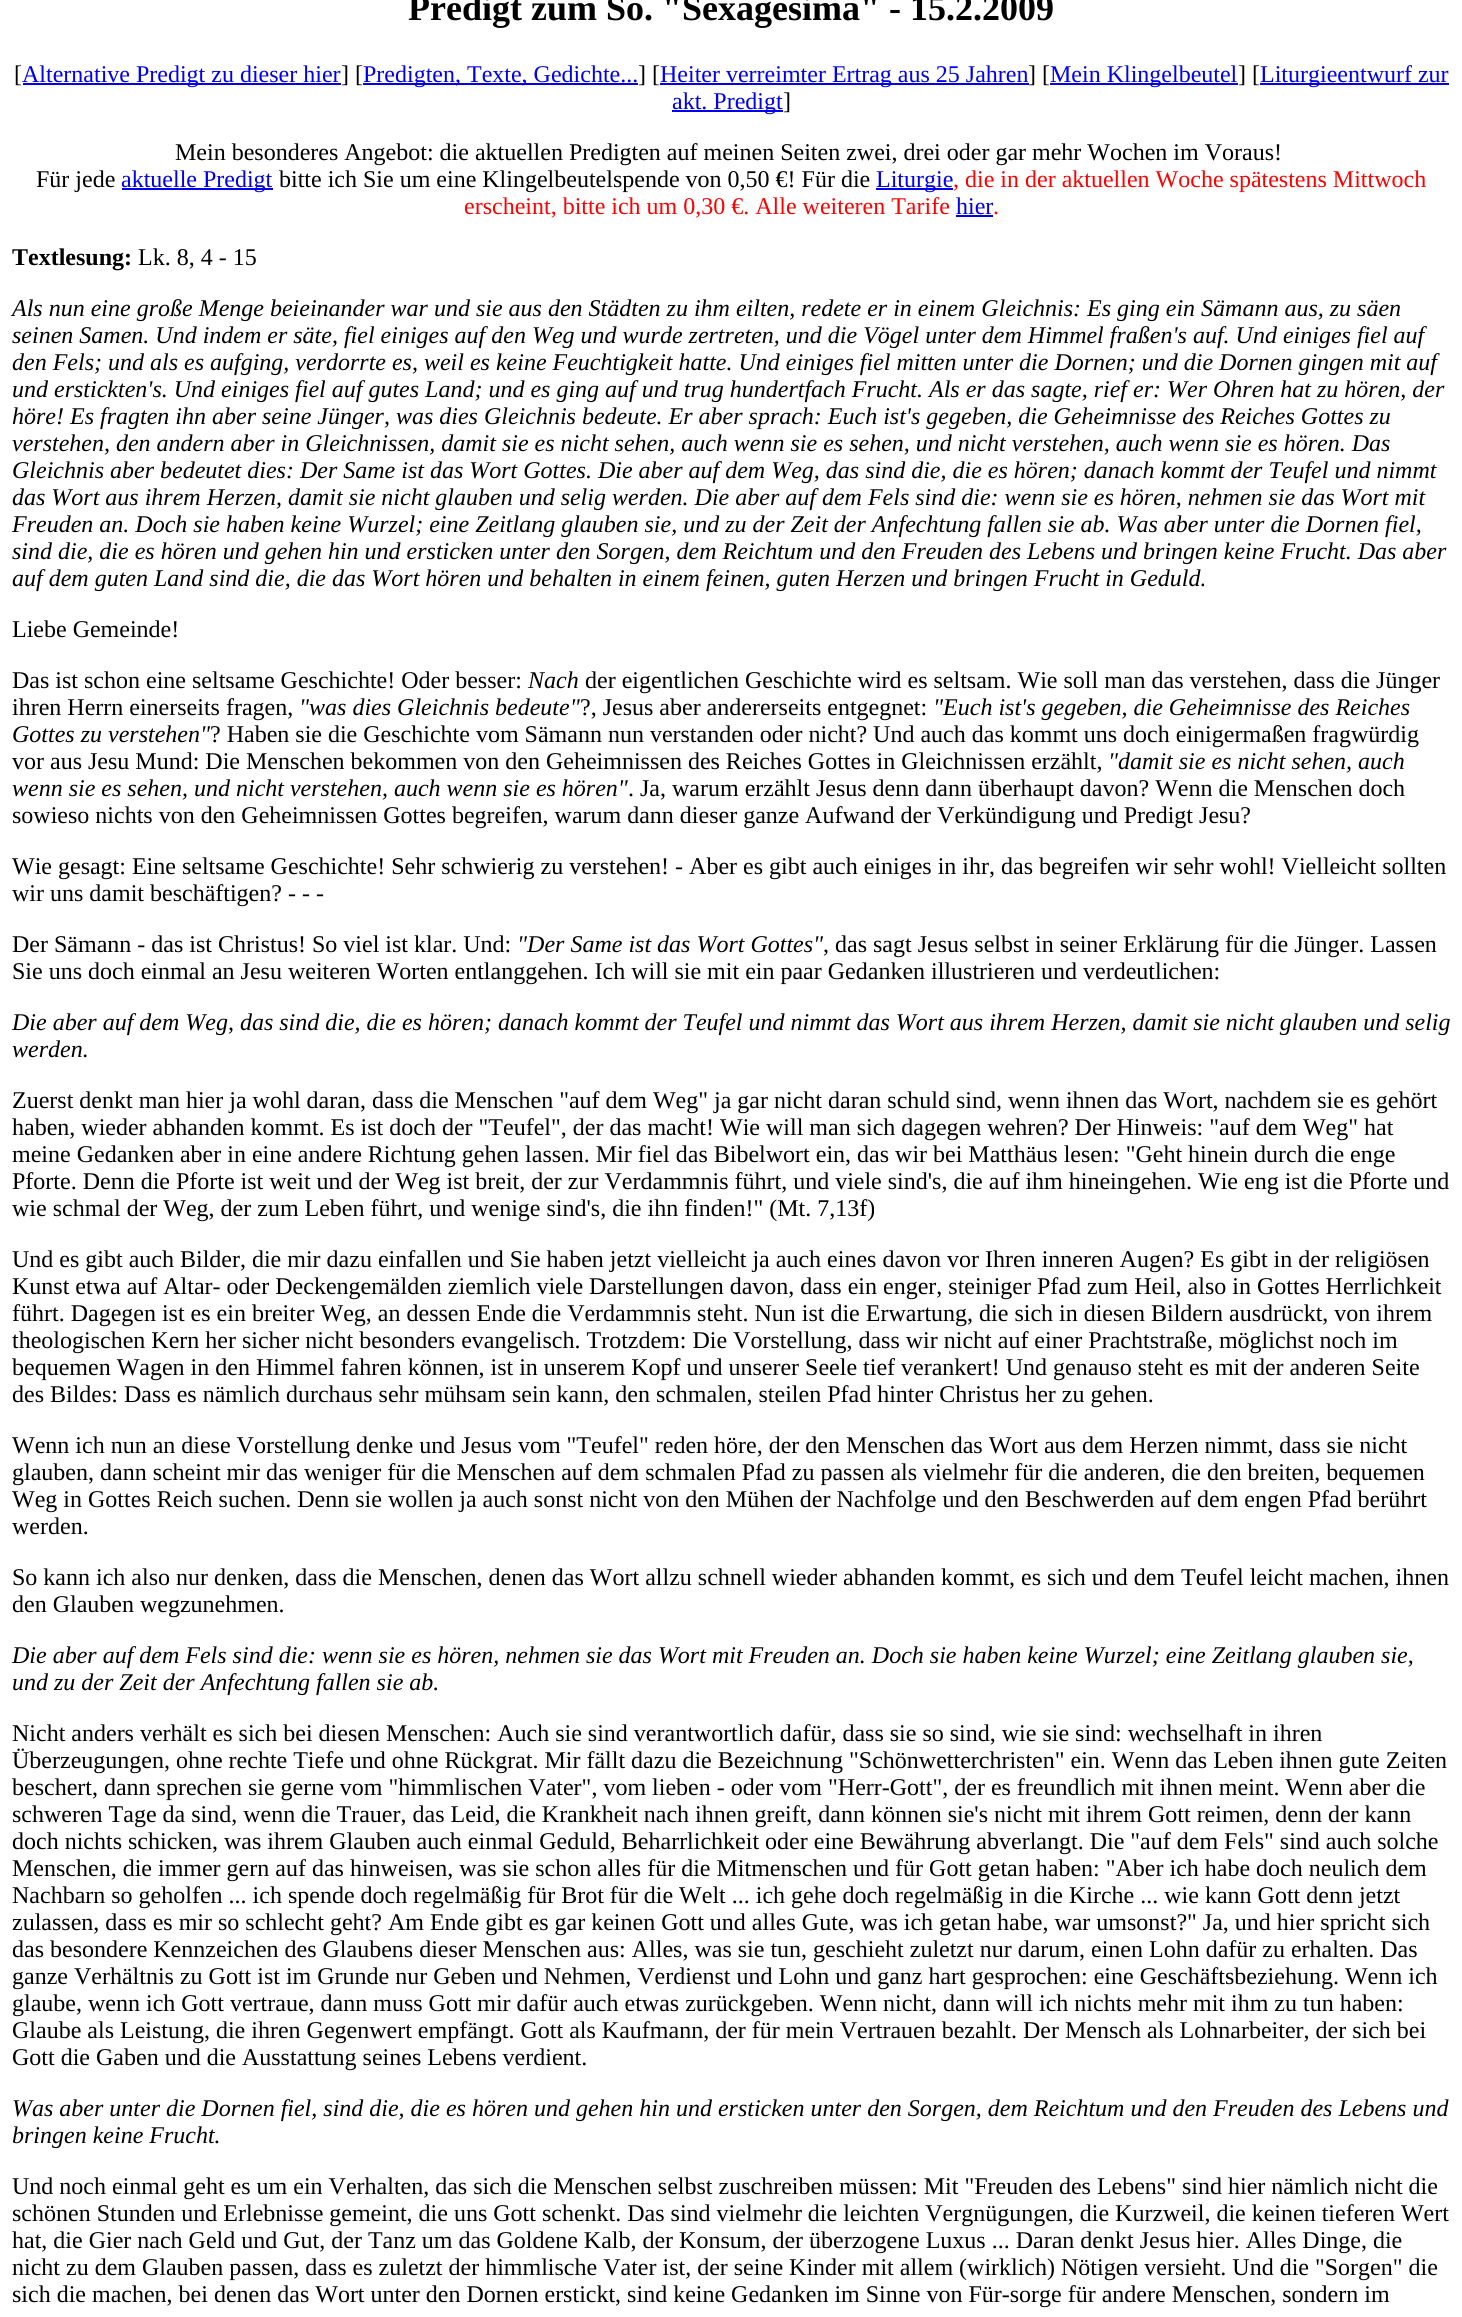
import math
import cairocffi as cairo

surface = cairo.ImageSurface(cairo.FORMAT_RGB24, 1462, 2317)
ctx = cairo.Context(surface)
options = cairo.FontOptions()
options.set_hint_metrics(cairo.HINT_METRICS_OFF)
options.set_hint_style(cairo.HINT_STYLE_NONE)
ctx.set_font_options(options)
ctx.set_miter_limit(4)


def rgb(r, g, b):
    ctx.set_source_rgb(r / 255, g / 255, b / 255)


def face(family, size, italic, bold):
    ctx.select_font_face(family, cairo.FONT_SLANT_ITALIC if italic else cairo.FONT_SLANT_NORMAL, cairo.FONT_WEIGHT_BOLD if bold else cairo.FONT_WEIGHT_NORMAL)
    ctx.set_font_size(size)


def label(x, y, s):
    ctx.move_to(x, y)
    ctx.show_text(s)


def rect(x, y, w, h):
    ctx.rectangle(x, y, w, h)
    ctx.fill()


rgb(255, 255, 255)
ctx.paint()
face('Liberation Serif', 36, 0, 1)
rgb(0, 0, 0)
label(408, 20, 'Predigt zum So. "Sexagesimä" - 15.2.2009')
face('Liberation Serif', 24, 0, 0)
label(14, 82, '[')
rgb(0, 0, 238)
rect(23, 83, 318, 2)
label(22, 82, 'Alternative Predigt zu dieser hier')
rgb(0, 0, 0)
label(341, 82, '] [')
rgb(0, 0, 238)
rect(363, 83, 275, 2)
label(363, 82, 'Predigten, Texte, Gedichte...')
rgb(0, 0, 0)
label(638, 82, '] [')
rgb(0, 0, 238)
rect(660, 83, 369, 2)
label(660, 82, 'Heiter verreimter Ertrag aus 25 Jahren')
rgb(0, 0, 0)
label(1028, 82, '] [')
rgb(0, 0, 238)
rect(1050, 83, 188, 2)
label(1050, 82, 'Mein Klingelbeutel')
rgb(0, 0, 0)
label(1238, 82, '] [')
rgb(0, 0, 238)
rect(1260, 83, 189, 2)
label(1260, 82, 'Liturgieentwurf zur')
rect(672, 110, 111, 2)
label(672, 109, 'akt. Predigt')
rgb(0, 0, 0)
label(783, 109, ']')
label(175, 160, 'Mein besonderes Angebot: die aktuellen Predigten auf meinen Seiten zwei, drei oder gar mehr Wochen im Voraus!')
label(36, 187, 'Für jede')
rgb(0, 0, 238)
rect(122, 188, 151, 2)
label(121, 187, 'aktuelle Predigt')
rgb(0, 0, 0)
label(279, 187, 'bitte ich Sie um eine Klingelbeutelspende von 0,50 €! Für die')
rgb(0, 0, 238)
rect(876, 188, 77, 2)
label(876, 187, 'Liturgie')
rgb(255, 0, 0)
label(953, 187, ', die in der aktuellen Woche spätestens Mittwoch')
label(464, 214, 'erscheint, bitte ich um 0,30 €. Alle weiteren Tarife')
rgb(0, 0, 238)
label(956, 214, 'hier')
rgb(255, 0, 0)
label(993, 214, '.')
rgb(0, 0, 238)
rect(956, 215, 37, 2)
face('Liberation Serif', 24, 0, 1)
rgb(0, 0, 0)
label(12, 265, 'Textlesung:')
face('Liberation Serif', 24, 0, 0)
label(138, 265, 'Lk. 8, 4 - 15')
face('Liberation Serif', 24, 1, 0)
label(12, 316, 'Als nun eine große Menge beieinander war und sie aus den Städten zu ihm eilten, redete er in einem Gleichnis: Es ging ein Sämann aus, zu säen')
label(12, 343, 'seinen Samen. Und indem er säte, fiel einiges auf den Weg und wurde zertreten, und die Vögel unter dem Himmel fraßen\'s auf. Und einiges fiel auf')
label(12, 370, 'den Fels; und als es aufging, verdorrte es, weil es keine Feuchtigkeit hatte. Und einiges fiel mitten unter die Dornen; und die Dornen gingen mit auf')
label(12, 397, 'und erstickten\'s. Und einiges fiel auf gutes Land; und es ging auf und trug hundertfach Frucht. Als er das sagte, rief er: Wer Ohren hat zu hören, der')
label(12, 424, 'höre! Es fragten ihn aber seine Jünger, was dies Gleichnis bedeute. Er aber sprach: Euch ist\'s gegeben, die Geheimnisse des Reiches Gottes zu')
label(12, 451, 'verstehen, den andern aber in Gleichnissen, damit sie es nicht sehen, auch wenn sie es sehen, und nicht verstehen, auch wenn sie es hören. Das')
label(12, 478, 'Gleichnis aber bedeutet dies: Der Same ist das Wort Gottes. Die aber auf dem Weg, das sind die, die es hören; danach kommt der Teufel und nimmt')
label(12, 505, 'das Wort aus ihrem Herzen, damit sie nicht glauben und selig werden. Die aber auf dem Fels sind die: wenn sie es hören, nehmen sie das Wort mit')
label(12, 532, 'Freuden an. Doch sie haben keine Wurzel; eine Zeitlang glauben sie, und zu der Zeit der Anfechtung fallen sie ab. Was aber unter die Dornen fiel,')
label(12, 559, 'sind die, die es hören und gehen hin und ersticken unter den Sorgen, dem Reichtum und den Freuden des Lebens und bringen keine Frucht. Das aber')
label(12, 586, 'auf dem guten Land sind die, die das Wort hören und behalten in einem feinen, guten Herzen und bringen Frucht in Geduld.')
face('Liberation Serif', 24, 0, 0)
label(12, 637, 'Liebe Gemeinde!')
label(12, 688, 'Das ist schon eine seltsame Geschichte! Oder besser:')
face('Liberation Serif', 24, 1, 0)
label(528, 688, 'Nach')
face('Liberation Serif', 24, 0, 0)
label(585, 688, 'der eigentlichen Geschichte wird es seltsam. Wie soll man das verstehen, dass die Jünger')
label(12, 715, 'ihren Herrn einerseits fragen,')
face('Liberation Serif', 24, 1, 0)
label(299, 715, '"was dies Gleichnis bedeute"')
face('Liberation Serif', 24, 0, 0)
label(580, 715, '?, Jesus aber andererseits entgegnet:')
face('Liberation Serif', 24, 1, 0)
label(933, 715, '"Euch ist\'s gegeben, die Geheimnisse des Reiches')
label(12, 742, 'Gottes zu verstehen"')
face('Liberation Serif', 24, 0, 0)
label(210, 742, '? Haben sie die Geschichte vom Sämann nun verstanden oder nicht? Und auch das kommt uns doch einigermaßen fragwürdig')
label(12, 769, 'vor aus Jesu Mund: Die Menschen bekommen von den Geheimnissen des Reiches Gottes in Gleichnissen erzählt,')
face('Liberation Serif', 24, 1, 0)
label(1108, 769, '"damit sie es nicht sehen, auch')
label(12, 796, 'wenn sie es sehen, und nicht verstehen, auch wenn sie es hören"')
face('Liberation Serif', 24, 0, 0)
label(628, 796, '. Ja, warum erzählt Jesus denn dann überhaupt davon? Wenn die Menschen doch')
label(12, 823, 'sowieso nichts von den Geheimnissen Gottes begreifen, warum dann dieser ganze Aufwand der Verkündigung und Predigt Jesu?')
label(12, 874, 'Wie gesagt: Eine seltsame Geschichte! Sehr schwierig zu verstehen! - Aber es gibt auch einiges in ihr, das begreifen wir sehr wohl! Vielleicht sollten')
label(12, 901, 'wir uns damit beschäftigen? - - -')
label(12, 952, 'Der Sämann - das ist Christus! So viel ist klar. Und:')
face('Liberation Serif', 24, 1, 0)
label(517, 952, '"Der Same ist das Wort Gottes"')
face('Liberation Serif', 24, 0, 0)
label(823, 952, ', das sagt Jesus selbst in seiner Erklärung für die Jünger. Lassen')
label(12, 979, 'Sie uns doch einmal an Jesu weiteren Worten entlanggehen. Ich will sie mit ein paar Gedanken illustrieren und verdeutlichen:')
face('Liberation Serif', 24, 1, 0)
label(12, 1030, 'Die aber auf dem Weg, das sind die, die es hören; danach kommt der Teufel und nimmt das Wort aus ihrem Herzen, damit sie nicht glauben und selig')
label(12, 1057, 'werden.')
face('Liberation Serif', 24, 0, 0)
label(12, 1108, 'Zuerst denkt man hier ja wohl daran, dass die Menschen "auf dem Weg" ja gar nicht daran schuld sind, wenn ihnen das Wort, nachdem sie es gehört')
label(12, 1135, 'haben, wieder abhanden kommt. Es ist doch der "Teufel", der das macht! Wie will man sich dagegen wehren? Der Hinweis: "auf dem Weg" hat')
label(12, 1162, 'meine Gedanken aber in eine andere Richtung gehen lassen. Mir fiel das Bibelwort ein, das wir bei Matthäus lesen: "Geht hinein durch die enge')
label(12, 1189, 'Pforte. Denn die Pforte ist weit und der Weg ist breit, der zur Verdammnis führt, und viele sind\'s, die auf ihm hineingehen. Wie eng ist die Pforte und')
label(12, 1216, 'wie schmal der Weg, der zum Leben führt, und wenige sind\'s, die ihn finden!" (Mt. 7,13f)')
label(12, 1267, 'Und es gibt auch Bilder, die mir dazu einfallen und Sie haben jetzt vielleicht ja auch eines davon vor Ihren inneren Augen? Es gibt in der religiösen')
label(12, 1294, 'Kunst etwa auf Altar- oder Deckengemälden ziemlich viele Darstellungen davon, dass ein enger, steiniger Pfad zum Heil, also in Gottes Herrlichkeit')
label(12, 1321, 'führt. Dagegen ist es ein breiter Weg, an dessen Ende die Verdammnis steht. Nun ist die Erwartung, die sich in diesen Bildern ausdrückt, von ihrem')
label(12, 1348, 'theologischen Kern her sicher nicht besonders evangelisch. Trotzdem: Die Vorstellung, dass wir nicht auf einer Prachtstraße, möglichst noch im')
label(12, 1375, 'bequemen Wagen in den Himmel fahren können, ist in unserem Kopf und unserer Seele tief verankert! Und genauso steht es mit der anderen Seite')
label(12, 1402, 'des Bildes: Dass es nämlich durchaus sehr mühsam sein kann, den schmalen, steilen Pfad hinter Christus her zu gehen.')
label(12, 1453, 'Wenn ich nun an diese Vorstellung denke und Jesus vom "Teufel" reden höre, der den Menschen das Wort aus dem Herzen nimmt, dass sie nicht')
label(12, 1480, 'glauben, dann scheint mir das weniger für die Menschen auf dem schmalen Pfad zu passen als vielmehr für die anderen, die den breiten, bequemen')
label(12, 1507, 'Weg in Gottes Reich suchen. Denn sie wollen ja auch sonst nicht von den Mühen der Nachfolge und den Beschwerden auf dem engen Pfad berührt')
label(12, 1534, 'werden.')
label(12, 1585, 'So kann ich also nur denken, dass die Menschen, denen das Wort allzu schnell wieder abhanden kommt, es sich und dem Teufel leicht machen, ihnen')
label(12, 1612, 'den Glauben wegzunehmen.')
face('Liberation Serif', 24, 1, 0)
label(12, 1663, 'Die aber auf dem Fels sind die: wenn sie es hören, nehmen sie das Wort mit Freuden an. Doch sie haben keine Wurzel; eine Zeitlang glauben sie,')
label(12, 1690, 'und zu der Zeit der Anfechtung fallen sie ab.')
face('Liberation Serif', 24, 0, 0)
label(12, 1741, 'Nicht anders verhält es sich bei diesen Menschen: Auch sie sind verantwortlich dafür, dass sie so sind, wie sie sind: wechselhaft in ihren')
label(12, 1768, 'Überzeugungen, ohne rechte Tiefe und ohne Rückgrat. Mir fällt dazu die Bezeichnung "Schönwetterchristen" ein. Wenn das Leben ihnen gute Zeiten')
label(12, 1795, 'beschert, dann sprechen sie gerne vom "himmlischen Vater", vom lieben - oder vom "Herr-Gott", der es freundlich mit ihnen meint. Wenn aber die')
label(12, 1822, 'schweren Tage da sind, wenn die Trauer, das Leid, die Krankheit nach ihnen greift, dann können sie\'s nicht mit ihrem Gott reimen, denn der kann')
label(12, 1849, 'doch nichts schicken, was ihrem Glauben auch einmal Geduld, Beharrlichkeit oder eine Bewährung abverlangt. Die "auf dem Fels" sind auch solche')
label(12, 1876, 'Menschen, die immer gern auf das hinweisen, was sie schon alles für die Mitmenschen und für Gott getan haben: "Aber ich habe doch neulich dem')
label(12, 1903, 'Nachbarn so geholfen ... ich spende doch regelmäßig für Brot für die Welt ... ich gehe doch regelmäßig in die Kirche ... wie kann Gott denn jetzt')
label(12, 1930, 'zulassen, dass es mir so schlecht geht? Am Ende gibt es gar keinen Gott und alles Gute, was ich getan habe, war umsonst?" Ja, und hier spricht sich')
label(12, 1957, 'das besondere Kennzeichen des Glaubens dieser Menschen aus: Alles, was sie tun, geschieht zuletzt nur darum, einen Lohn dafür zu erhalten. Das')
label(12, 1984, 'ganze Verhältnis zu Gott ist im Grunde nur Geben und Nehmen, Verdienst und Lohn und ganz hart gesprochen: eine Geschäftsbeziehung. Wenn ich')
label(12, 2011, 'glaube, wenn ich Gott vertraue, dann muss Gott mir dafür auch etwas zurückgeben. Wenn nicht, dann will ich nichts mehr mit ihm zu tun haben:')
label(12, 2038, 'Glaube als Leistung, die ihren Gegenwert empfängt. Gott als Kaufmann, der für mein Vertrauen bezahlt. Der Mensch als Lohnarbeiter, der sich bei')
label(12, 2065, 'Gott die Gaben und die Ausstattung seines Lebens verdient.')
face('Liberation Serif', 24, 1, 0)
label(12, 2116, 'Was aber unter die Dornen fiel, sind die, die es hören und gehen hin und ersticken unter den Sorgen, dem Reichtum und den Freuden des Lebens und')
label(12, 2143, 'bringen keine Frucht.')
face('Liberation Serif', 24, 0, 0)
label(12, 2194, 'Und noch einmal geht es um ein Verhalten, das sich die Menschen selbst zuschreiben müssen: Mit "Freuden des Lebens" sind hier nämlich nicht die')
label(12, 2221, 'schönen Stunden und Erlebnisse gemeint, die uns Gott schenkt. Das sind vielmehr die leichten Vergnügungen, die Kurzweil, die keinen tieferen Wert')
label(12, 2248, 'hat, die Gier nach Geld und Gut, der Tanz um das Goldene Kalb, der Konsum, der überzogene Luxus ... Daran denkt Jesus hier. Alles Dinge, die')
label(12, 2275, 'nicht zu dem Glauben passen, dass es zuletzt der himmlische Vater ist, der seine Kinder mit allem (wirklich) Nötigen versieht. Und die "Sorgen" die')
label(12, 2302, 'sich die machen, bei denen das Wort unter den Dornen erstickt, sind keine Gedanken im Sinne von Für-sorge für andere Menschen, sondern im')
surface.write_to_png('render.png')
